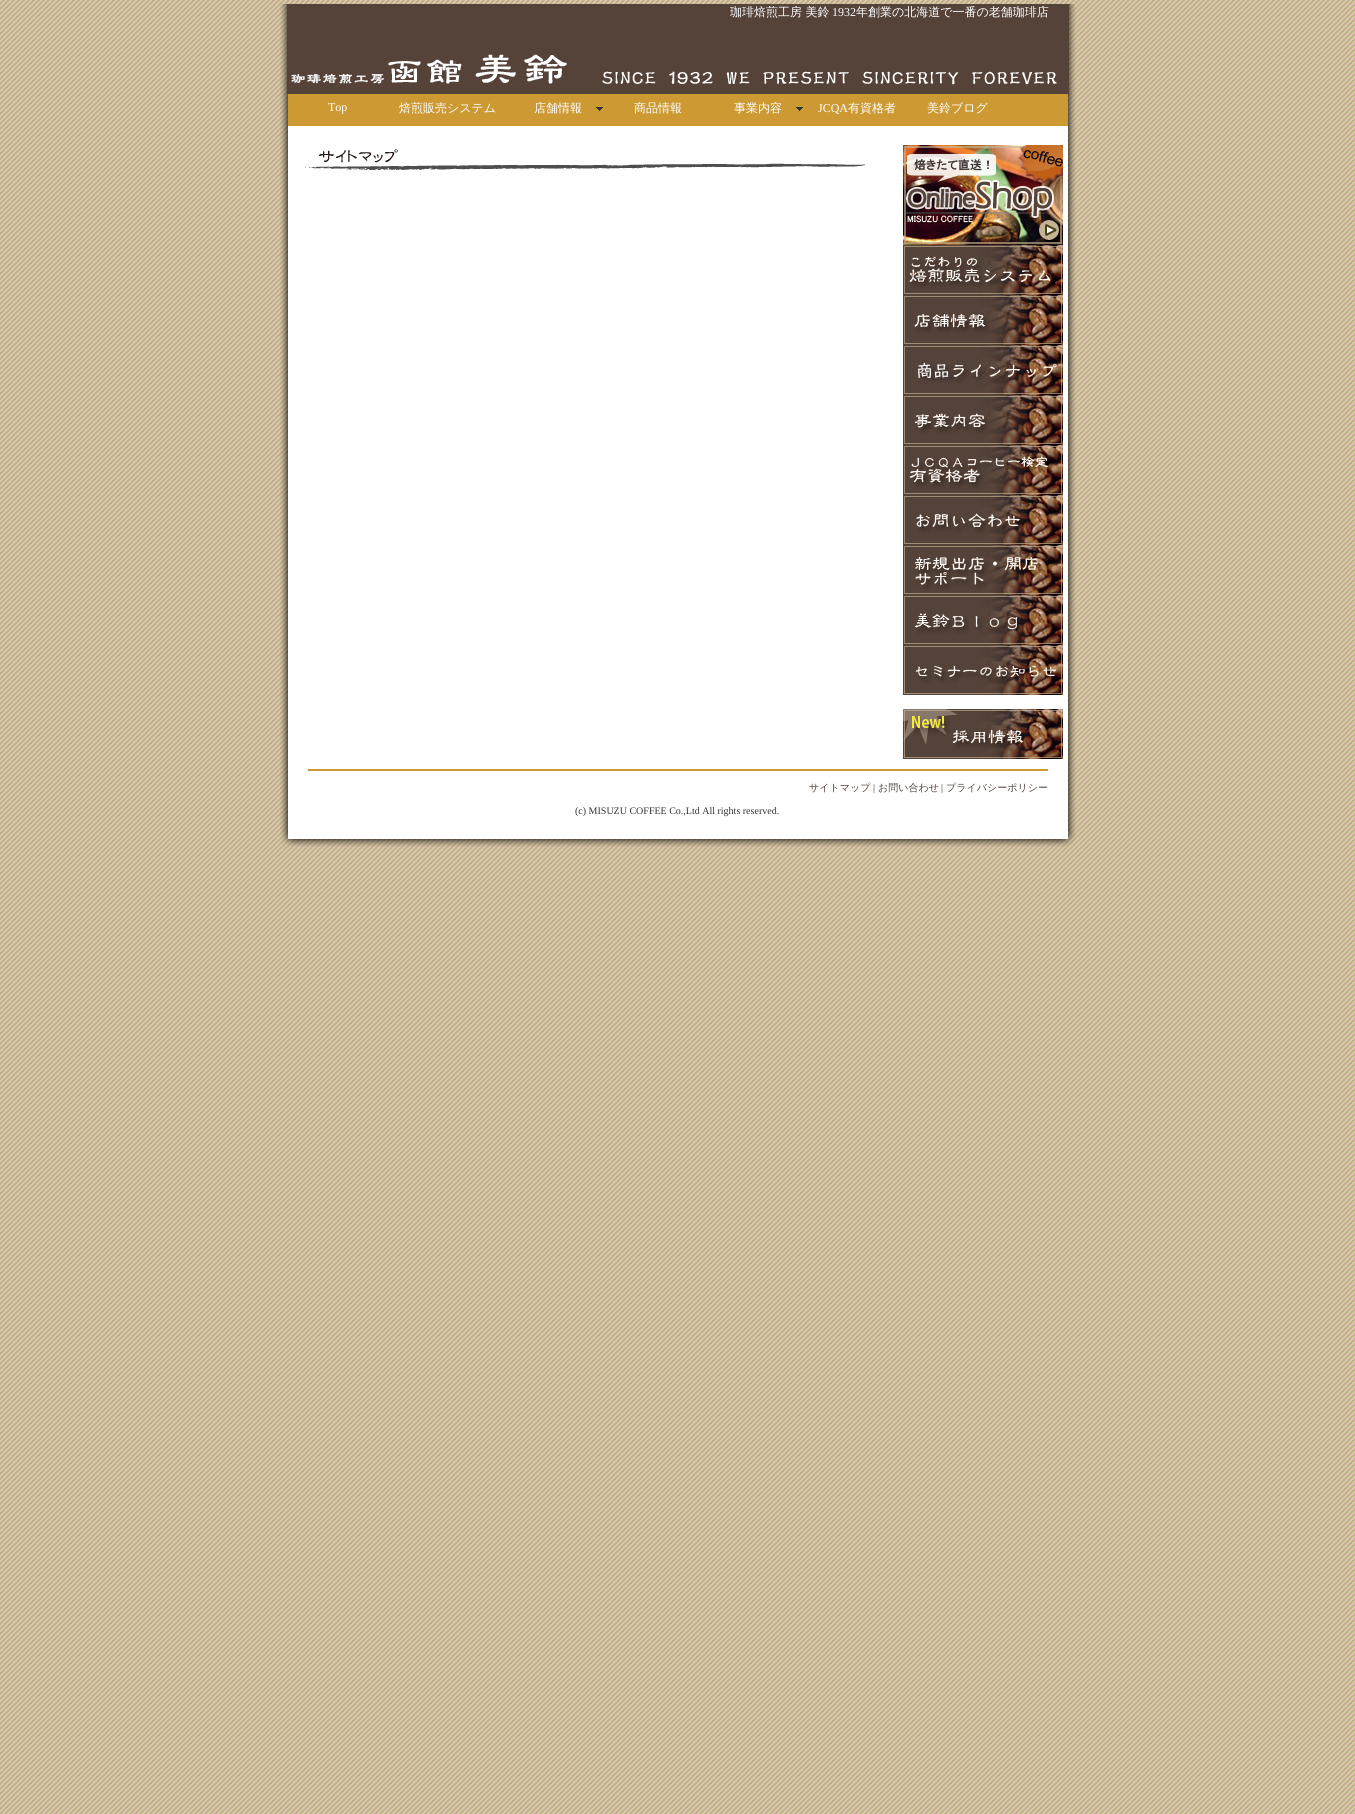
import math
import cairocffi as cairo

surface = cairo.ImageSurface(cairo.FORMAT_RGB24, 1355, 1814)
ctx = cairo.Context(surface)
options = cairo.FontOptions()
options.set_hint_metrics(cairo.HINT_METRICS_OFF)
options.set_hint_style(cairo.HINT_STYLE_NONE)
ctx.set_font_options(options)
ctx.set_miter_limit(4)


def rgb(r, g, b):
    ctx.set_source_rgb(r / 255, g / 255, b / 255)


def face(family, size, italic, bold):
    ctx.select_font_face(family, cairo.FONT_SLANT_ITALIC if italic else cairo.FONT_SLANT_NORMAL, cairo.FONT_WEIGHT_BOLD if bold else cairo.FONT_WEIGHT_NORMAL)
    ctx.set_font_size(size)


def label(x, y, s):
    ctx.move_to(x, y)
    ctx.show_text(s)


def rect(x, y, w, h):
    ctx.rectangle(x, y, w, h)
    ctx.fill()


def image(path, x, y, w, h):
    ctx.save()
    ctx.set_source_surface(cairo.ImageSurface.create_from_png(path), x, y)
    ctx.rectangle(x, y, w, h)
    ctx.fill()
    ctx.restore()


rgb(255, 255, 255)
ctx.paint()
image('image0.png', 0, 0, 1355, 1814)
image('image1.png', 280, 829, 796, 18)
image('image2.png', 280, 4, 796, 825)
image('image3.png', 287, 4, 782, 90)
face('WenQuanYi Zen Hei Medium', 12, 0, 0)
rgb(255, 255, 255)
label(730, 16, '珈琲焙煎工房 美鈴')
face('Liberation Serif', 12, 0, 0)
label(832, 16, '1932')
face('WenQuanYi Zen Hei Medium', 12, 0, 0)
label(856, 16, '年創業の北海道で一番の老舗珈琲店')
rgb(204, 153, 51)
rect(288, 94, 780, 32)
face('Liberation Serif', 12, 0, 0)
rgb(255, 255, 255)
label(328, 111, 'Top')
face('WenQuanYi Zen Hei Medium', 12, 0, 0)
label(399, 112, '焙煎販売システム')
image('image4.png', 596, 107, 7, 4)
label(534, 112, '店舗情報')
label(634, 112, '商品情報')
image('image4.png', 796, 107, 7, 4)
label(734, 112, '事業内容')
face('Liberation Serif', 12, 0, 0)
label(818, 112, 'JCQA')
face('WenQuanYi Zen Hei Medium', 12, 0, 0)
label(848, 112, '有資格者')
label(927, 112, '美鈴ブログ')
image('image5.png', 305, 149, 560, 21)
image('image6.png', 903, 145, 160, 100)
image('image7.png', 903, 245, 160, 50)
image('image8.png', 903, 295, 160, 50)
image('image9.png', 903, 345, 160, 50)
image('image10.png', 903, 395, 160, 50)
image('image11.png', 903, 445, 160, 50)
image('image12.png', 903, 495, 160, 50)
image('image13.png', 903, 545, 160, 50)
image('image14.png', 903, 595, 160, 50)
image('image15.png', 903, 645, 160, 50)
image('image16.png', 903, 709, 160, 50)
rgb(204, 153, 51)
rect(308, 769, 740, 2)
face('WenQuanYi Zen Hei Medium', 10, 0, 0)
rgb(85, 67, 58)
label(809, 791, 'サイトマップ')
face('Liberation Serif', 10, 0, 0)
rgb(51, 51, 51)
label(873, 791, '|')
face('WenQuanYi Zen Hei Medium', 10, 0, 0)
rgb(85, 67, 58)
label(878, 791, 'お問い合わせ')
face('Liberation Serif', 10, 0, 0)
rgb(51, 51, 51)
label(941, 791, '|')
face('WenQuanYi Zen Hei Medium', 10, 0, 0)
rgb(85, 67, 58)
label(946, 791, 'プライバシーポリシー')
face('Liberation Serif', 10, 0, 0)
rgb(51, 51, 51)
label(575, 814, '(c) MISUZU COFFEE Co.,Ltd All rights reserved.')
surface.write_to_png('render.png')
